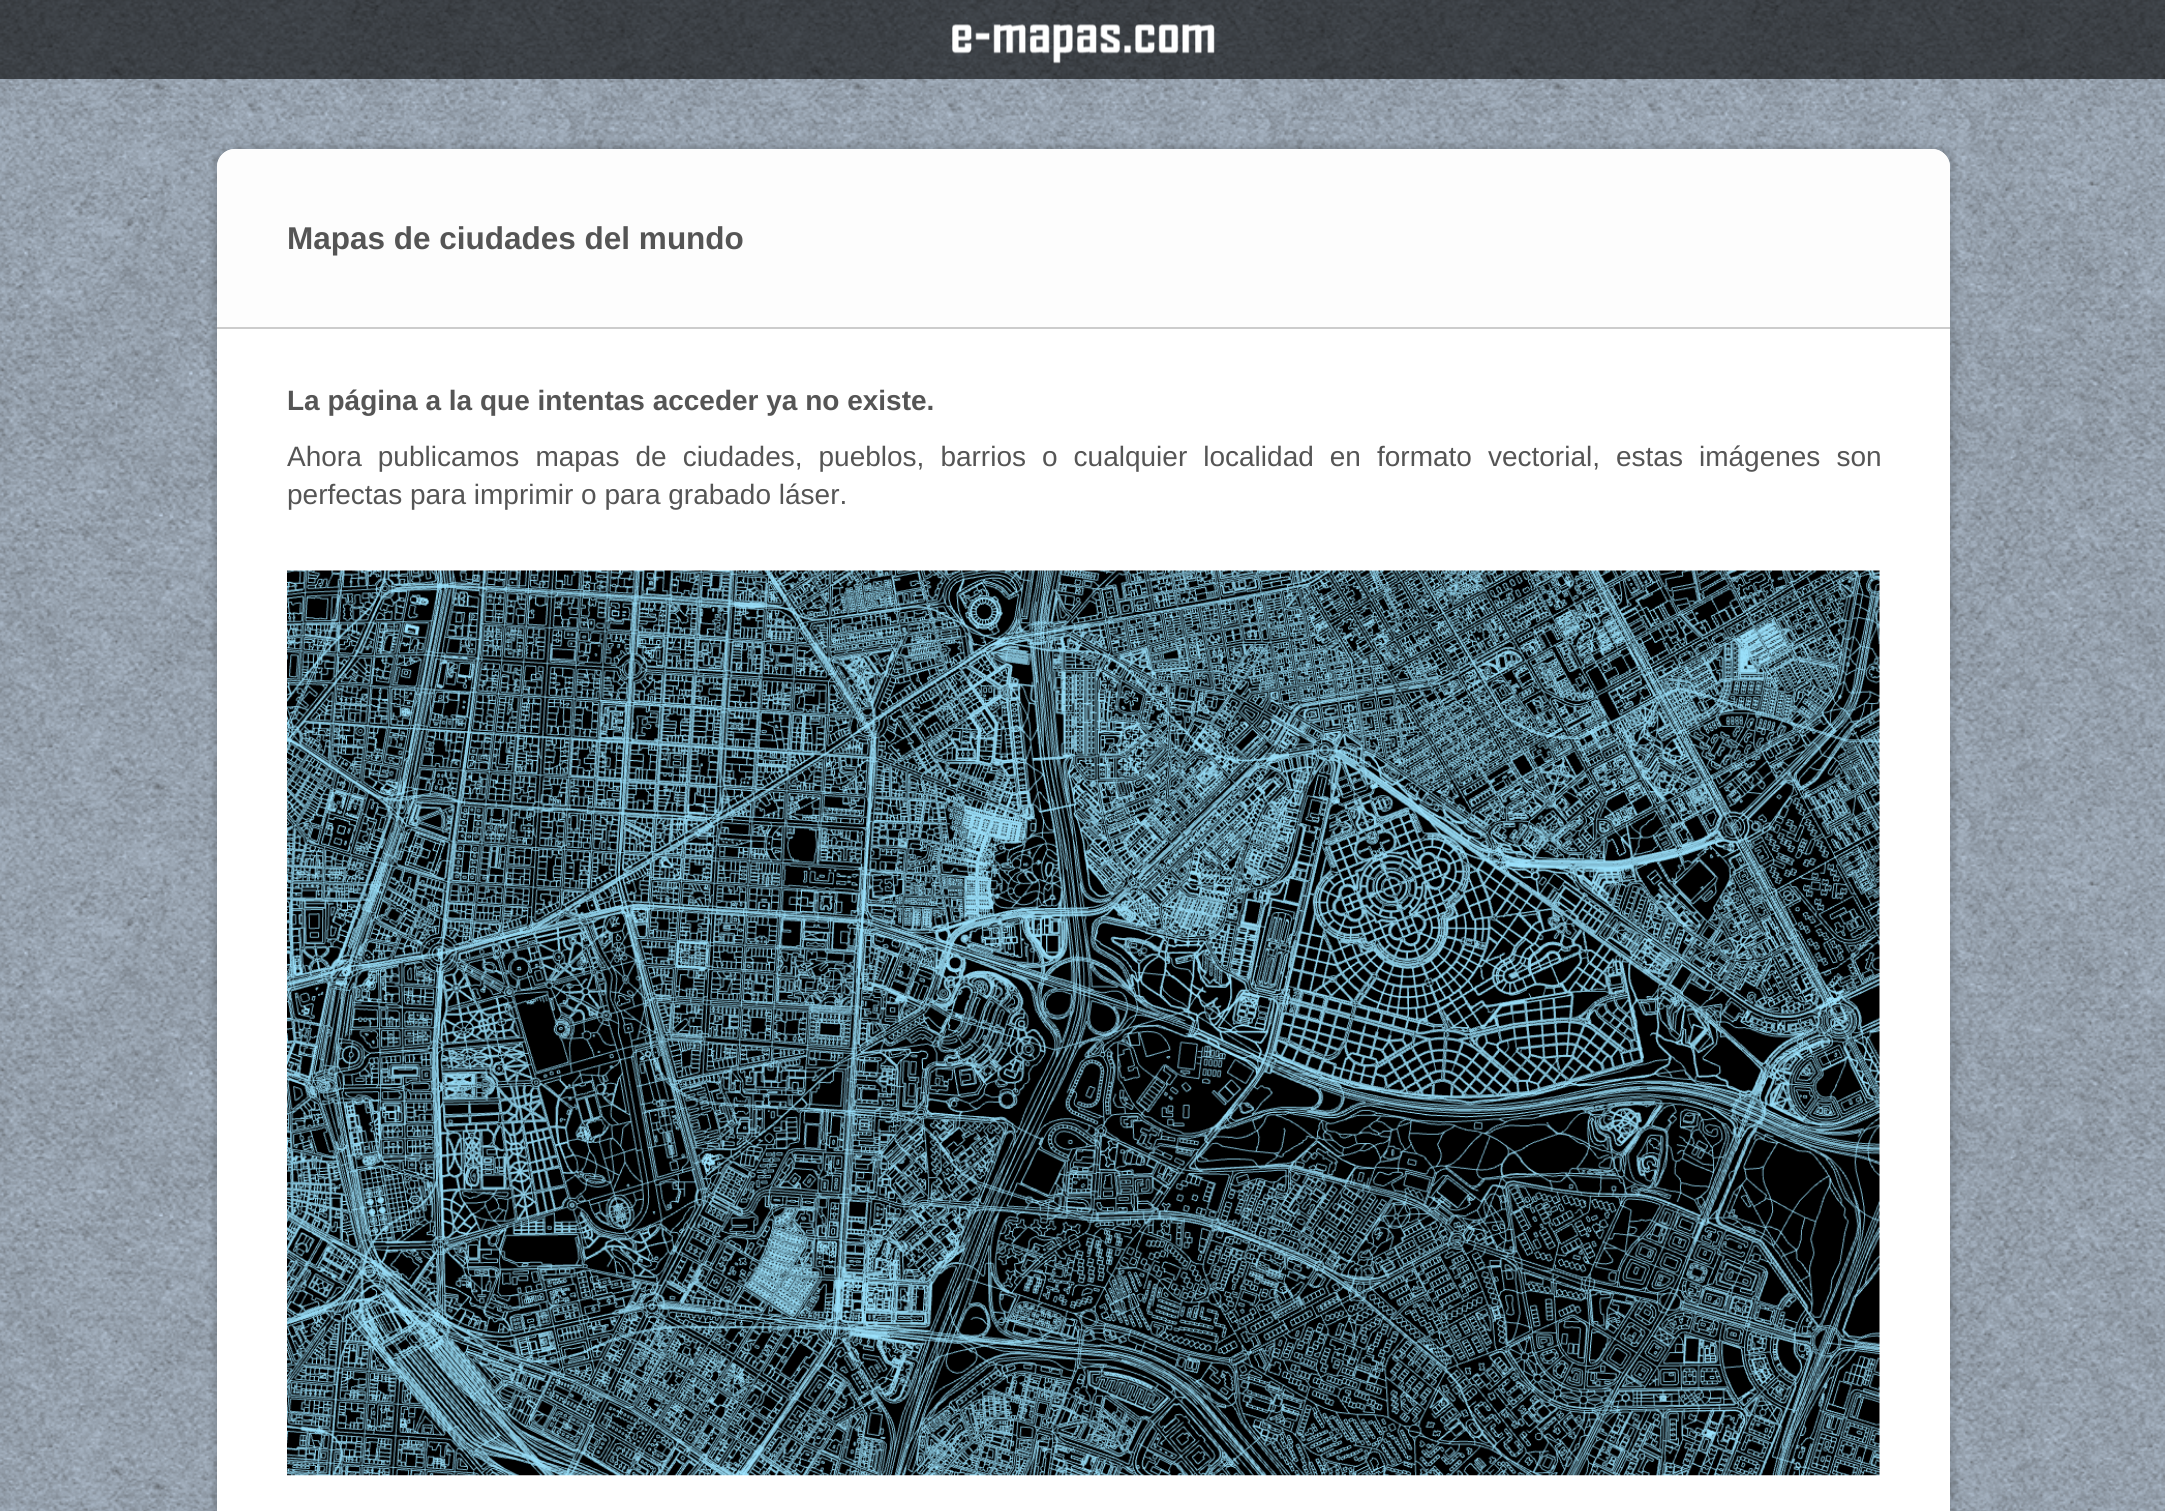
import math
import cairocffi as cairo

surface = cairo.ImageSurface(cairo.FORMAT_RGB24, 2165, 1511)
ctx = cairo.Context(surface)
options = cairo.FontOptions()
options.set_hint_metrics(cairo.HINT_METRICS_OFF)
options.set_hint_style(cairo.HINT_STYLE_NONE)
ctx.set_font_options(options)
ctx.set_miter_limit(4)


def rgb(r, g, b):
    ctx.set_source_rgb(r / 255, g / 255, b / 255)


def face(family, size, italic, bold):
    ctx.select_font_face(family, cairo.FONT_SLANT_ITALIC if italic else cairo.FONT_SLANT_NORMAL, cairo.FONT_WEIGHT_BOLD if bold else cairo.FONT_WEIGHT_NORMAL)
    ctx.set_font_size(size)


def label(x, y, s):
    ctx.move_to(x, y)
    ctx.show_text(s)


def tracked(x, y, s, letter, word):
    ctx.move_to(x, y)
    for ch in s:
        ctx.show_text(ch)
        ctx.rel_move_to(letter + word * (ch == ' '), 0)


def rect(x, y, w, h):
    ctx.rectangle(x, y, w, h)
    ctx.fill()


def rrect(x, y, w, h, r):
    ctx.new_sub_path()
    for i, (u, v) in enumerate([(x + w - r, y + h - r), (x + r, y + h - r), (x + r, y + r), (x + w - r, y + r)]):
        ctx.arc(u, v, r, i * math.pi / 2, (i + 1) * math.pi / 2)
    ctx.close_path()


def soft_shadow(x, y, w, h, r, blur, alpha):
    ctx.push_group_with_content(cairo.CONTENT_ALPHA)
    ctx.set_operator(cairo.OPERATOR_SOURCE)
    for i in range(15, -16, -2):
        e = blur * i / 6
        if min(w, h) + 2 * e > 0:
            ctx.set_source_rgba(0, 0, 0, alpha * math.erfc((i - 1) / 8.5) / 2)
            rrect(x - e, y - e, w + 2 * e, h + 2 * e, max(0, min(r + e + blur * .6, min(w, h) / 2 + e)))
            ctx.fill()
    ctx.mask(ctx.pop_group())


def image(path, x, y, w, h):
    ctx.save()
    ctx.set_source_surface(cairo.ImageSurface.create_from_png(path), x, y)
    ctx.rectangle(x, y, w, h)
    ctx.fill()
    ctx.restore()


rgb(193, 210, 229)
ctx.paint()
image('image0.png', 0, 0, 2165, 1511)
ctx.set_source_rgba(0, 0, 0, 0.6)
rect(0, 0, 2165, 79)
image('image1.png', 952, 24, 263, 40)
rgb(0, 0, 0)
soft_shadow(212, 144, 1743, 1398, 23, 2.5, 0.12)
rgb(255, 255, 255)
rrect(217, 149, 1733, 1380, 18)
ctx.fill()
rgb(253, 253, 253)
ctx.new_path()
ctx.move_to(235, 149)
ctx.line_to(1932, 149)
ctx.curve_to(1942, 149, 1950, 157, 1950, 167)
ctx.line_to(1950, 329)
ctx.line_to(217, 329)
ctx.line_to(217, 167)
ctx.curve_to(217, 157, 225, 149, 235, 149)
ctx.close_path()
ctx.fill()
rgb(204, 204, 204)
rect(217, 327, 1733, 2)
face('Liberation Sans', 31.5, 0, 1)
rgb(85, 85, 85)
label(287, 249, 'Mapas de ciudades del mundo')
face('Liberation Sans', 28, 0, 1)
label(287, 410, 'La página a la que intentas acceder ya no existe.')
face('Liberation Sans', 28, 0, 0)
tracked(287, 466, 'Ahora publicamos mapas de ciudades, pueblos, barrios o cualquier localidad en formato vectorial, estas imágenes son', 0, 8.25)
label(287, 504, 'perfectas para imprimir o para grabado láser.')
image('image2.png', 287, 570, 1593, 906)
surface.write_to_png('render.png')
